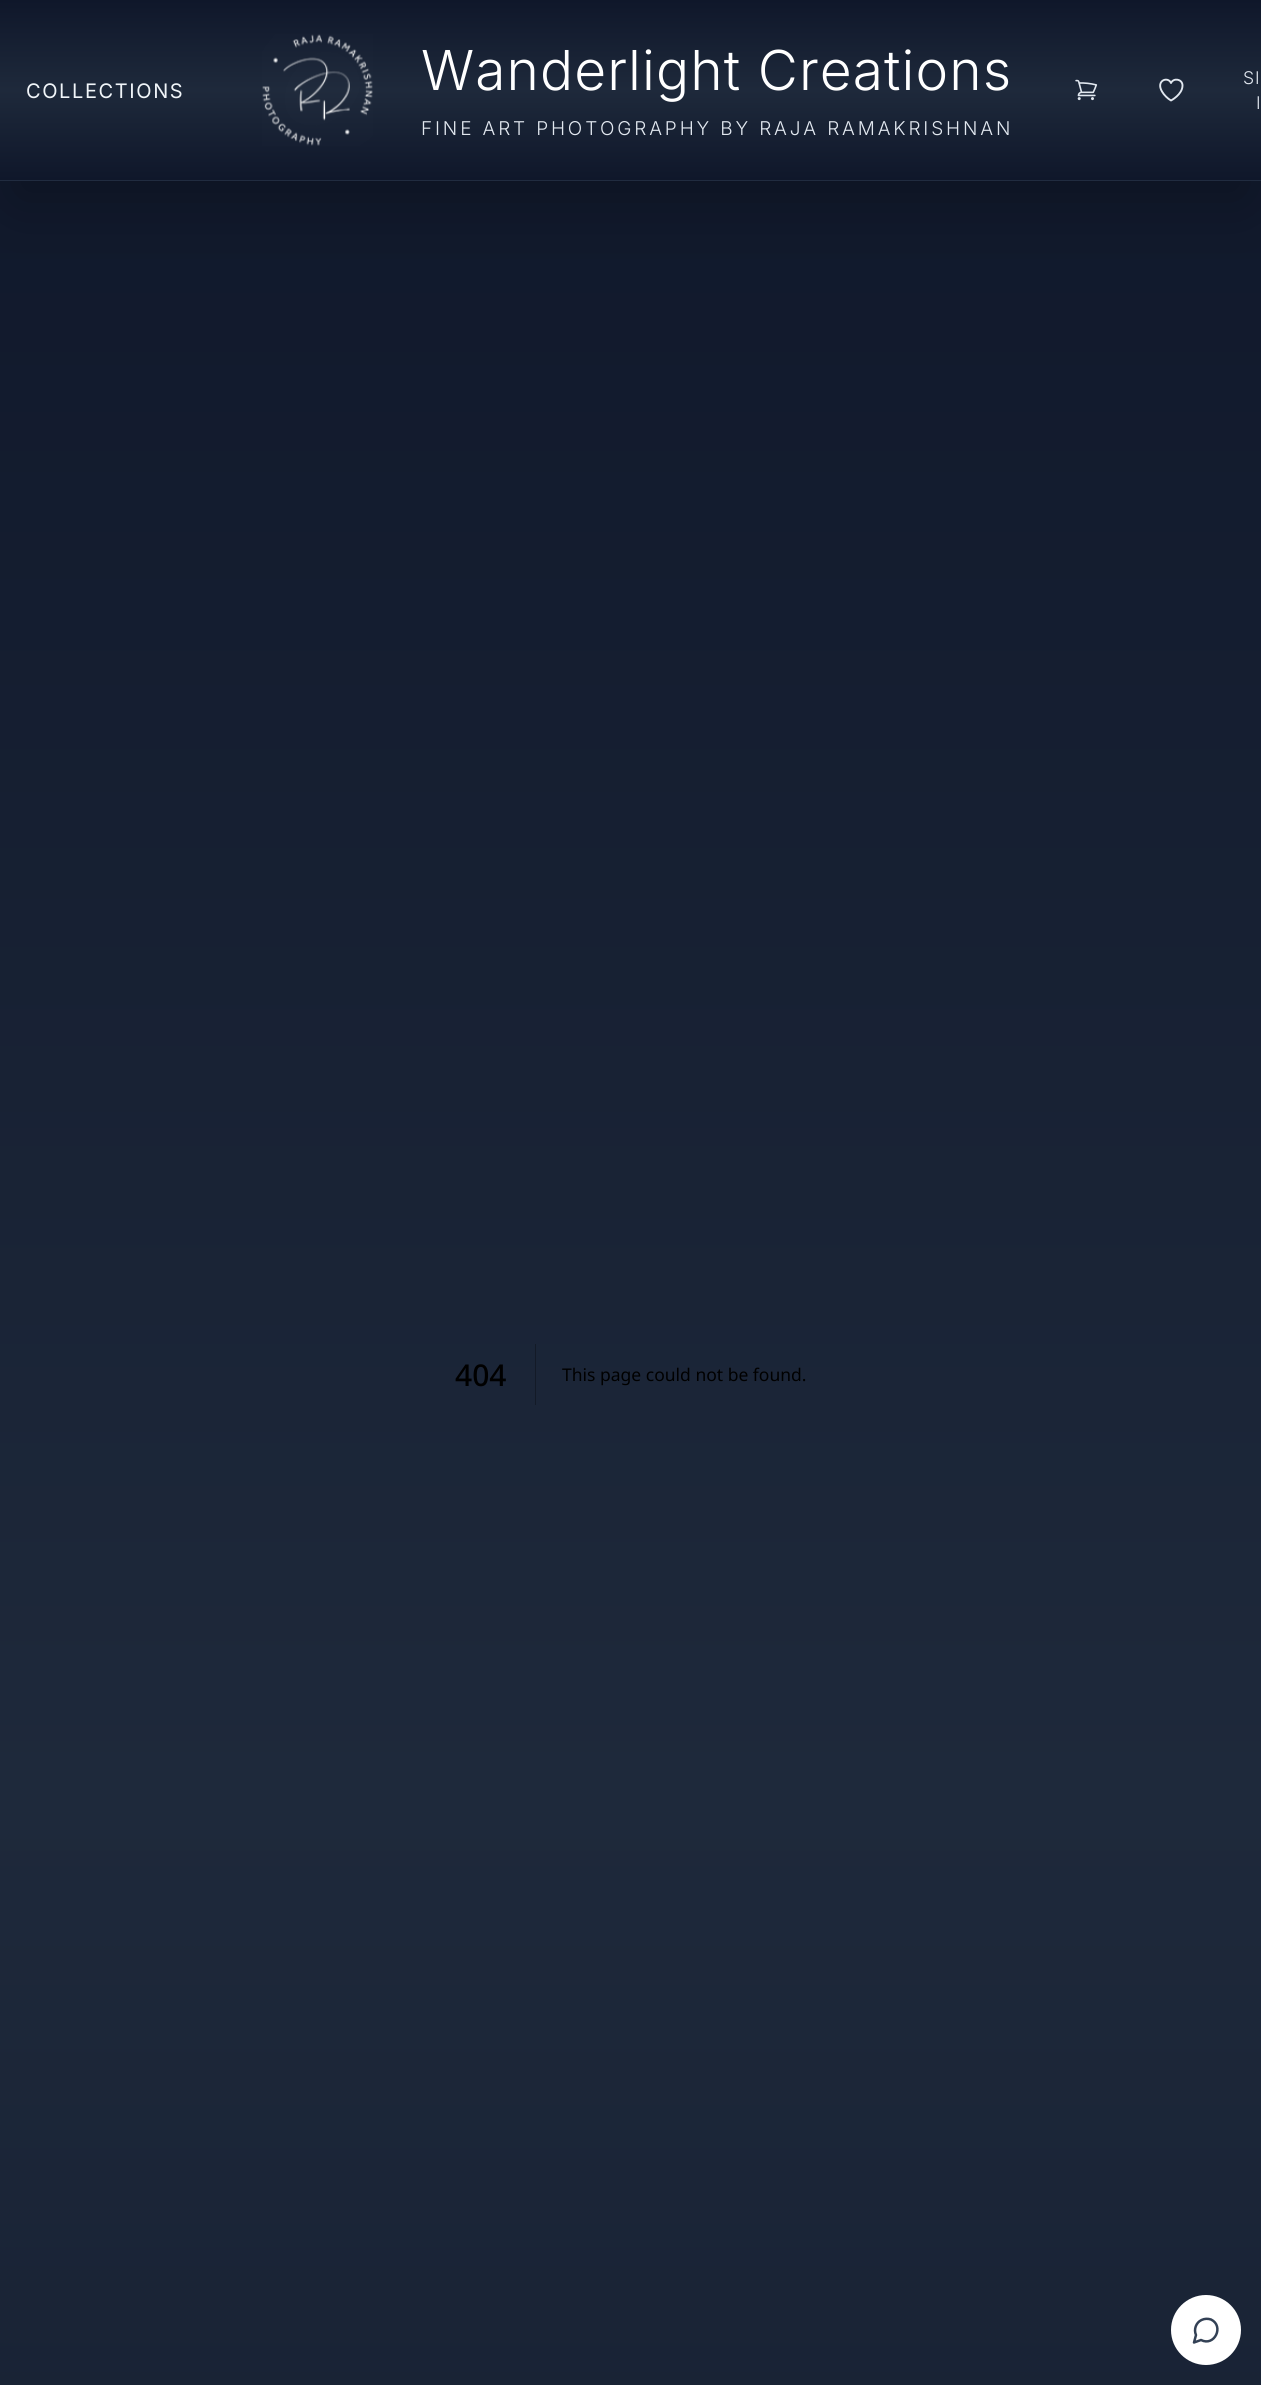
import math
import cairocffi as cairo

surface = cairo.ImageSurface(cairo.FORMAT_RGB24, 1261, 2385)
ctx = cairo.Context(surface)
options = cairo.FontOptions()
options.set_hint_metrics(cairo.HINT_METRICS_OFF)
options.set_hint_style(cairo.HINT_STYLE_NONE)
ctx.set_font_options(options)
ctx.set_miter_limit(4)


def rgb(r, g, b):
    ctx.set_source_rgb(r / 255, g / 255, b / 255)


def face(family, size, italic, bold):
    ctx.select_font_face(family, cairo.FONT_SLANT_ITALIC if italic else cairo.FONT_SLANT_NORMAL, cairo.FONT_WEIGHT_BOLD if bold else cairo.FONT_WEIGHT_NORMAL)
    ctx.set_font_size(size)


def label(x, y, s):
    ctx.move_to(x, y)
    ctx.show_text(s)


def tracked(x, y, s, letter, word):
    ctx.move_to(x, y)
    for ch in s:
        ctx.show_text(ch)
        ctx.rel_move_to(letter + word * (ch == ' '), 0)


def rect(x, y, w, h):
    ctx.rectangle(x, y, w, h)
    ctx.fill()


def rrect(x, y, w, h, r):
    ctx.new_sub_path()
    for i, (u, v) in enumerate([(x + w - r, y + h - r), (x + r, y + h - r), (x + r, y + r), (x + w - r, y + r)]):
        ctx.arc(u, v, r, i * math.pi / 2, (i + 1) * math.pi / 2)
    ctx.close_path()


def soft_shadow(x, y, w, h, r, blur, alpha):
    ctx.push_group_with_content(cairo.CONTENT_ALPHA)
    ctx.set_operator(cairo.OPERATOR_SOURCE)
    for i in range(15, -16, -2):
        e = blur * i / 6
        if min(w, h) + 2 * e > 0:
            ctx.set_source_rgba(0, 0, 0, alpha * math.erfc((i - 1) / 8.5) / 2)
            rrect(x - e, y - e, w + 2 * e, h + 2 * e, max(0, min(r + e + blur * .6, min(w, h) / 2 + e)))
            ctx.fill()
    ctx.mask(ctx.pop_group())


def image(path, x, y, w, h):
    ctx.save()
    ctx.set_source_surface(cairo.ImageSurface.create_from_png(path), x, y)
    ctx.rectangle(x, y, w, h)
    ctx.fill()
    ctx.restore()


rgb(255, 255, 255)
ctx.paint()
gradient = cairo.LinearGradient(631, 0, 631, 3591)
gradient.add_color_stop_rgba(0, 0.059, 0.09, 0.165, 1)
gradient.add_color_stop_rgba(0.5, 0.118, 0.161, 0.231, 1)
gradient.add_color_stop_rgba(1, 0.059, 0.09, 0.165, 1)
ctx.set_source(gradient)
rect(0, 181, 1261, 2204)
rgb(0, 0, 0)
soft_shadow(15, 46, 1231, 152, 0, 31, 0.25)
gradient = cairo.LinearGradient(631, 0, 631, 180)
gradient.add_color_stop_rgba(0, 0.059, 0.09, 0.165, 1)
gradient.add_color_stop_rgba(0.5, 0.118, 0.161, 0.231, 1)
gradient.add_color_stop_rgba(1, 0.059, 0.09, 0.165, 1)
ctx.set_source(gradient)
rect(0, 0, 1261, 180)
rgb(33, 44, 64)
rect(0, 180, 1261, 1)
face('Inter', 20, 0, 0)
rgb(241, 245, 249)
tracked(26, 98, 'COLLECTIONS', 1.6, 0)
image('image0.png', 262, 34, 111, 112)
face('Inter Light', 55, 0, 0)
rgb(255, 255, 255)
tracked(421, 90, 'Wanderlight Creations', 1.1, 0)
face('Inter Light', 19, 0, 0)
rgb(226, 232, 240)
tracked(421, 135, 'FINE ART PHOTOGRAPHY BY RAJA RAMAKRISHNAN', 2.85, 0)
image('image1.png', 1075, 79, 23, 22)
ctx.new_path()
ctx.move_to(1182.5, 85.5)
ctx.curve_to(1182.5, 79, 1173.5, 77.5, 1171, 83)
ctx.curve_to(1168, 76, 1155.5, 80.5, 1162, 91.5)
ctx.curve_to(1164, 95, 1167.5, 98.5, 1171, 100.5)
ctx.curve_to(1171, 100.5, 1182.5, 94.5, 1182.5, 85.5)
ctx.close_path()
ctx.set_line_width(1.9)
ctx.set_line_cap(cairo.LINE_CAP_ROUND)
ctx.set_line_join(cairo.LINE_JOIN_ROUND)
ctx.stroke()
face('Inter Light', 17.5, 0, 0)
tracked(1243, 84, 'SI', 1, 0)
tracked(1256, 109, 'I', 1, 0)
rgb(19, 26, 39)
rect(535, 1344, 1, 61)
face('Noto Sans Medium', 30, 0, 0)
rgb(0, 0, 0)
label(455, 1386, '404')
face('Noto Sans', 17.5, 0, 0)
label(562, 1381, 'This page could not be found.')
rgb(255, 255, 255)
ctx.new_path()
ctx.arc(1206, 2330, 35, 0, 2 * math.pi)
ctx.fill()
ctx.new_path()
ctx.move_to(1201, 2340)
ctx.curve_to(1214.5, 2347, 1224.5, 2326, 1211, 2319.5)
ctx.curve_to(1208, 2318.5, 1204.5, 2318.5, 1201.5, 2320)
ctx.curve_to(1196, 2322.5, 1193.5, 2329.5, 1196, 2335)
ctx.line_to(1194, 2342.5)
ctx.close_path()
rgb(51, 65, 85)
ctx.set_line_width(2.5)
ctx.stroke()
surface.write_to_png('render.png')
